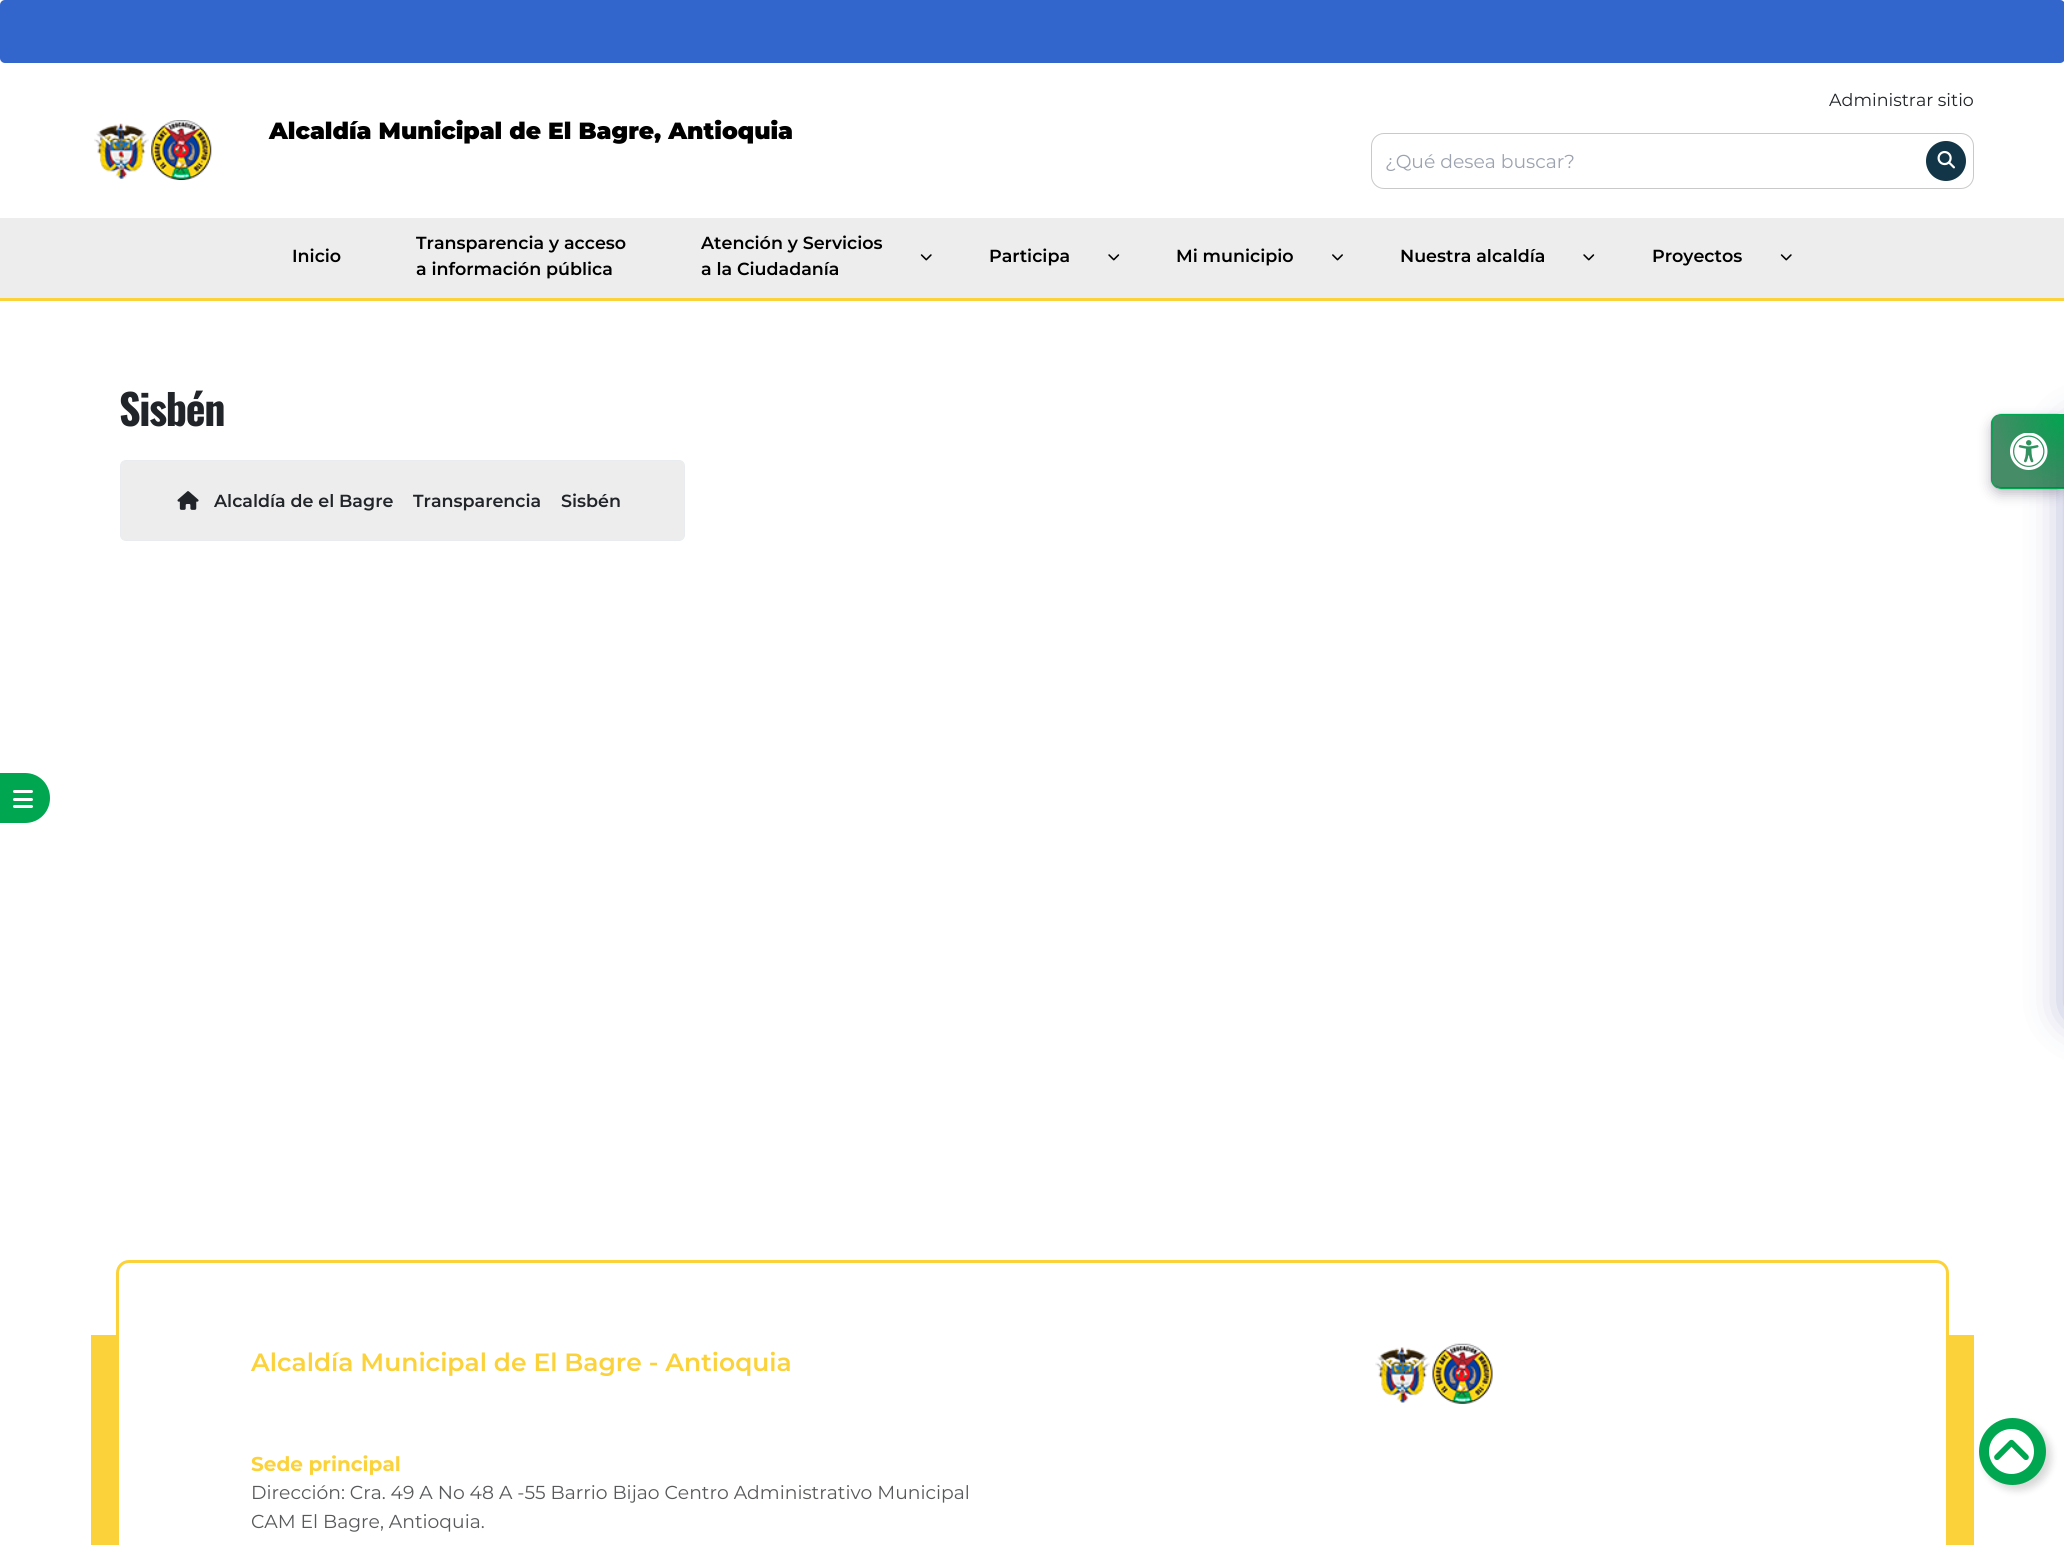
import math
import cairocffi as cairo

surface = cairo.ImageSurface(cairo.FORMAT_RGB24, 2064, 1545)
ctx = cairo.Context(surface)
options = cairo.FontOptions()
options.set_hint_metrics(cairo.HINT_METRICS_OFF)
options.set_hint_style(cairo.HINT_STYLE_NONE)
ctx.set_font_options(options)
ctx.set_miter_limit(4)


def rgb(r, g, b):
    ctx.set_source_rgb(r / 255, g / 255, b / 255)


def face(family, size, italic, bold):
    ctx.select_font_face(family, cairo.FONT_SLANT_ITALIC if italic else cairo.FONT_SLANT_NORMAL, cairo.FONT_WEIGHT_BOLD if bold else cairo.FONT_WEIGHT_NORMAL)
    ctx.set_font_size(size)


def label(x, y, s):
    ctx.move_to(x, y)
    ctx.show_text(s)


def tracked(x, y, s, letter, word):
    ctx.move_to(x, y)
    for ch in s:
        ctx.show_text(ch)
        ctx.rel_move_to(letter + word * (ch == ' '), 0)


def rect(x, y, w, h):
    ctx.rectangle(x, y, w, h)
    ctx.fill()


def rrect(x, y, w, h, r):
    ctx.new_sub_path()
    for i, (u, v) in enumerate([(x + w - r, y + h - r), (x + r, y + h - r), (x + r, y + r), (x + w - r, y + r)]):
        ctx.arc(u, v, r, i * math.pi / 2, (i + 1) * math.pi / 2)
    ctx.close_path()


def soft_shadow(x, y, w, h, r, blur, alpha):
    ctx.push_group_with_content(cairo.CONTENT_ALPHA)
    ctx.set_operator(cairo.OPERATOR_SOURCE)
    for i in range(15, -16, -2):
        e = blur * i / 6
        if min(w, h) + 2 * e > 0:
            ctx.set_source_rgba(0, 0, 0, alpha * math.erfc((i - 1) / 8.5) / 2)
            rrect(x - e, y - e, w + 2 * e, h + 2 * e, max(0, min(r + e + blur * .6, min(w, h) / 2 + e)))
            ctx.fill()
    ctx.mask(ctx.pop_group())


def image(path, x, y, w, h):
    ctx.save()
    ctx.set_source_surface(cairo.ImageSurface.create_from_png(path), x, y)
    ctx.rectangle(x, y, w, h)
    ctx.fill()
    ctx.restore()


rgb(255, 255, 255)
ctx.paint()
rgb(51, 102, 204)
rrect(0, 0, 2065, 63, 5)
ctx.fill()
face('Montserrat', 17.5, 0, 0)
rgb(33, 37, 41)
label(1829, 106, 'Administrar sitio')
image('image0.png', 94, 123, 55, 56)
image('image1.png', 151, 120, 61, 60)
face('Montserrat Black', 23.4, 0, 0)
rgb(0, 0, 0)
label(269, 139, 'Alcaldía Municipal de El Bagre, Antioquia')
rrect(1371.5, 133.5, 602, 55, 12.5)
rgb(201, 201, 201)
ctx.set_line_width(1)
ctx.stroke()
face('Montserrat', 18.75, 0, 0)
rgb(156, 163, 175)
label(1385, 168, '¿Qué desea buscar?')
rgb(18, 54, 72)
ctx.new_path()
ctx.arc(1946, 161, 20, 0, 2 * math.pi)
ctx.fill()
image('image2.png', 1937, 150, 18, 19)
rgb(237, 237, 237)
rect(0, 218, 2064, 80)
rgb(251, 210, 58)
rect(0, 298, 2064, 3)
face('Montserrat SemiBold', 17.5, 0, 0)
rgb(0, 0, 0)
label(292, 262, 'Inicio')
label(416, 249, 'Transparencia y acceso')
label(416, 275, 'a información pública')
label(701, 249, 'Atención y Servicios')
label(701, 275, 'a la Ciudadanía')
image('image3.png', 920, 254, 12, 7)
label(989, 262, 'Participa')
image('image4.png', 1108, 254, 12, 7)
label(1176, 262, 'Mi municipio')
image('image5.png', 1332, 254, 11, 7)
label(1400, 262, 'Nuestra alcaldía')
image('image4.png', 1583, 254, 12, 7)
label(1652, 262, 'Proyectos')
image('image3.png', 1780, 254, 12, 7)
face('Oswald', 42, 0, 1)
rgb(33, 37, 41)
tracked(119, 426, 'Sisbén', -1.25, 0)
rgb(237, 237, 237)
rrect(120.5, 460.5, 564, 80, 5.5)
ctx.fill_preserve()
rgb(233, 236, 239)
ctx.stroke()
image('image6.png', 177, 491, 22, 19)
face('Montserrat SemiBold', 17.5, 0, 0)
rgb(33, 37, 41)
label(214, 507, 'Alcaldía de el Bagre')
label(413, 507, 'Transparencia')
label(561, 507, 'Sisbén')
rgb(0, 167, 80)
ctx.new_path()
ctx.move_to(0, 773)
ctx.line_to(25, 773)
ctx.curve_to(39, 773, 50, 784, 50, 798)
ctx.curve_to(50, 812, 39, 823, 25, 823)
ctx.line_to(0, 823)
ctx.close_path()
ctx.fill()
rgb(255, 255, 255)
rrect(13, 790, 20, 3, 1.5)
ctx.fill()
rrect(13, 798, 20, 3, 1.5)
ctx.fill()
rrect(13, 805, 20, 3, 1.5)
ctx.fill()
rgb(251, 210, 58)
ctx.new_path()
ctx.move_to(91, 1335)
ctx.line_to(91, 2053)
ctx.line_to(1849, 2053)
ctx.line_to(1849, 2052)
ctx.line_to(129, 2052)
ctx.curve_to(122, 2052, 116, 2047, 116, 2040)
ctx.line_to(116, 1335)
ctx.close_path()
ctx.fill()
ctx.new_path()
ctx.move_to(216, 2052)
ctx.line_to(216, 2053)
ctx.line_to(1974, 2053)
ctx.line_to(1974, 1335)
ctx.line_to(1949, 1335)
ctx.line_to(1949, 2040)
ctx.curve_to(1949, 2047, 1943, 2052, 1936, 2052)
ctx.close_path()
ctx.fill()
rrect(117.5, 1261.5, 1830, 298, 11.5)
ctx.set_line_width(3)
ctx.stroke()
face('Montserrat SemiBold', 25, 0, 0)
label(251, 1371, 'Alcaldía Municipal de El Bagre - Antioquia')
image('image7.png', 1375, 1347, 55, 56)
image('image8.png', 1432, 1343, 61, 61)
face('Montserrat', 20, 0, 1)
label(251, 1471, 'Sede principal')
face('Montserrat', 18.75, 0, 0)
rgb(88, 89, 91)
label(251, 1499, 'Dirección: Cra. 49 A No 48 A -55 Barrio Bijao Centro Administrativo Municipal')
label(251, 1528, 'CAM El Bagre, Antioquia.')
rgb(0, 0, 0)
soft_shadow(1984, 1423, 67, 67, 33.5, 4, 0.16)
rgb(0, 167, 80)
ctx.arc(2012.5, 1451.5, 33.5, 0, 2 * math.pi)
ctx.fill()
rgb(255, 255, 255)
ctx.arc(2011.5, 1451.5, 22.5, 0, 2 * math.pi)
ctx.fill()
image('image9.png', 1994, 1439, 35, 21)
rgb(31, 38, 135)
soft_shadow(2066, 424, 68, 597, 10, 20, 0.37)
ctx.save()
ctx.set_fill_rule(cairo.FILL_RULE_EVEN_ODD)
ctx.new_path()
ctx.move_to(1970, 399)
ctx.line_to(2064, 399)
ctx.line_to(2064, 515)
ctx.line_to(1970, 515)
ctx.close_path()
ctx.move_to(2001, 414)
ctx.line_to(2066, 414)
ctx.line_to(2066, 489)
ctx.line_to(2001, 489)
ctx.curve_to(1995.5, 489, 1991, 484.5, 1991, 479)
ctx.line_to(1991, 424)
ctx.curve_to(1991, 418.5, 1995.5, 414, 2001, 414)
ctx.close_path()
ctx.clip()
rgb(45, 35, 66)
soft_shadow(1991, 420, 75, 74, 10, 6.5, 0.3)
ctx.restore()
ctx.save()
ctx.set_fill_rule(cairo.FILL_RULE_EVEN_ODD)
ctx.new_path()
ctx.move_to(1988, 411)
ctx.line_to(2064, 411)
ctx.line_to(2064, 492)
ctx.line_to(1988, 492)
ctx.close_path()
ctx.move_to(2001, 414)
ctx.line_to(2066, 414)
ctx.line_to(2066, 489)
ctx.line_to(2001, 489)
ctx.curve_to(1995.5, 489, 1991, 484.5, 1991, 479)
ctx.line_to(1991, 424)
ctx.curve_to(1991, 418.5, 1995.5, 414, 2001, 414)
ctx.close_path()
ctx.clip()
rgb(45, 35, 66)
soft_shadow(1991, 414, 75, 75, 10, 0.5, 0.4)
ctx.restore()
ctx.save()
ctx.new_path()
ctx.move_to(2001, 414)
ctx.line_to(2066, 414)
ctx.line_to(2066, 489)
ctx.line_to(2001, 489)
ctx.curve_to(1995.5, 489, 1991, 484.5, 1991, 479)
ctx.line_to(1991, 424)
ctx.curve_to(1991, 418.5, 1995.5, 414, 2001, 414)
ctx.close_path()
ctx.clip()
gradient = cairo.RadialGradient(1993, 415, 0, 1993, 415, 73)
gradient.add_color_stop_rgba(0, 0, 0.655, 0.314, 1)
gradient.add_color_stop_rgba(1, 0.067, 0.424, 0.235, 0.78)
ctx.set_source(gradient)
rect(1991, 415, 2, 73)
gradient = cairo.RadialGradient(2065, 415, 0, 2065, 415, 73)
gradient.add_color_stop_rgba(0, 0, 0.655, 0.314, 1)
gradient.add_color_stop_rgba(1, 0.067, 0.424, 0.235, 0.78)
ctx.set_source(gradient)
rect(1993, 415, 71, 73)
ctx.restore()
ctx.set_source_rgba(0.227, 0.255, 0.435, 0.5)
ctx.new_path()
ctx.move_to(1995, 485)
ctx.curve_to(1997, 487, 1999, 488, 2002, 488)
ctx.line_to(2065, 488)
ctx.line_to(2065, 487)
ctx.line_to(2001, 487)
ctx.curve_to(1999, 487, 1997, 486, 1995, 485)
ctx.close_path()
ctx.fill()
ctx.new_path()
ctx.move_to(2001, 414.5)
ctx.line_to(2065.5, 414.5)
ctx.line_to(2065.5, 488.5)
ctx.line_to(2001, 488.5)
ctx.curve_to(1996, 488.5, 1991.5, 484, 1991.5, 479)
ctx.line_to(1991.5, 424)
ctx.curve_to(1991.5, 419, 1996, 414.5, 2001, 414.5)
ctx.close_path()
rgb(0, 167, 80)
ctx.set_line_width(1)
ctx.stroke()
image('image10.png', 2010, 433, 38, 37)
surface.write_to_png('render.png')
